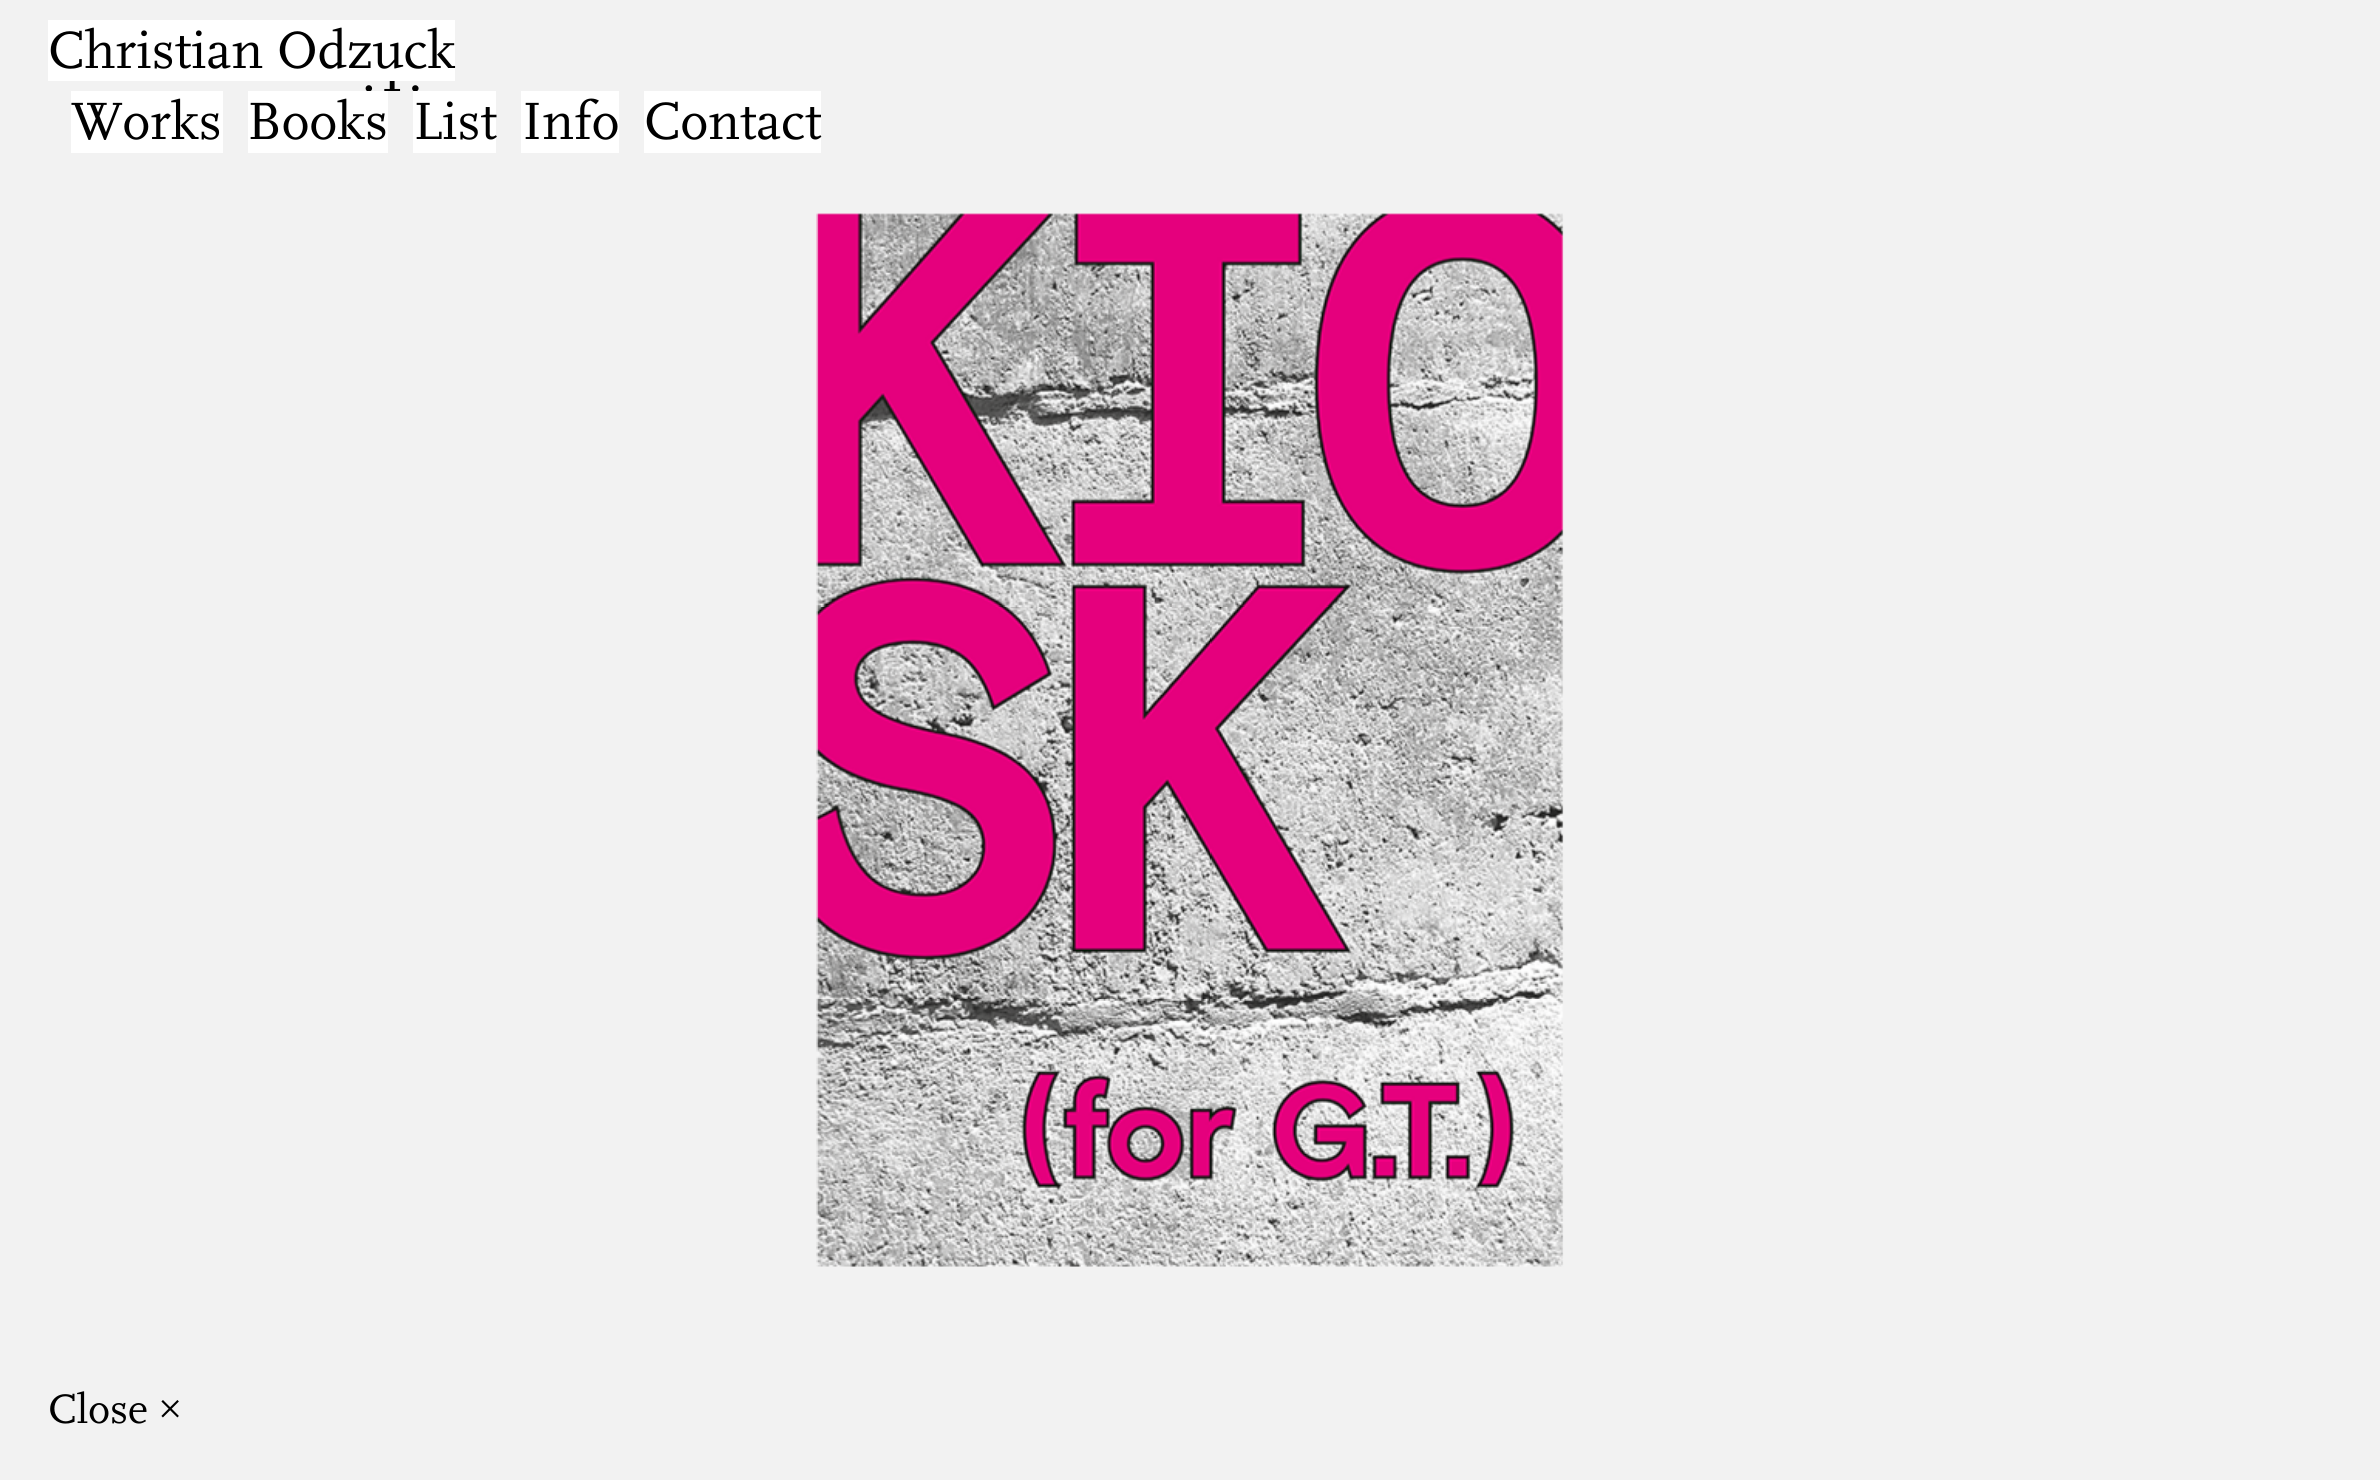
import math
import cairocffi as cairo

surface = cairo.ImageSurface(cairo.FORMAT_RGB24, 2380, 1480)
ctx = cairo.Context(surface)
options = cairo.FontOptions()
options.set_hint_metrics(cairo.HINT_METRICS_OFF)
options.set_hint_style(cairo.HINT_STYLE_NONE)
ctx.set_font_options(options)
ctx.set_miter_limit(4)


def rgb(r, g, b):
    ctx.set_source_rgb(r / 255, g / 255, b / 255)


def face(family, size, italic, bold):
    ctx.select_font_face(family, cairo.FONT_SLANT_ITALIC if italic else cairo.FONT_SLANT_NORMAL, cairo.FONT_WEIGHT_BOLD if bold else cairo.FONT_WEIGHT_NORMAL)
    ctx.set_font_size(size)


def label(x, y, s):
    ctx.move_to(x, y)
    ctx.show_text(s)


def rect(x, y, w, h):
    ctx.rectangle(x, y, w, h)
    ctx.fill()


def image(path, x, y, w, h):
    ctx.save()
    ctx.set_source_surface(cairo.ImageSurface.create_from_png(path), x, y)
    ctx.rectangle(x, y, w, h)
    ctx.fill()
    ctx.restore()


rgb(242, 242, 242)
ctx.paint()
face('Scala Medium', 54.75, 0, 0)
rgb(0, 0, 0)
label(362, 91, '.T.')
rgb(255, 255, 255)
rect(48, 20, 407, 61)
rgb(0, 0, 0)
label(48, 68, 'Christian Odzuck')
image('image0.png', 816, 213, 748, 1054)
face('Scala Medium', 43, 0, 0)
label(48, 1423, 'Close')
face('Liberation Serif', 43, 0, 0)
label(158, 1423, '×')
rgb(255, 255, 255)
rect(71, 91, 152, 62)
face('Scala Medium', 54.75, 0, 0)
rgb(0, 0, 0)
label(71, 139, 'Works')
rgb(255, 255, 255)
rect(248, 91, 140, 62)
rgb(0, 0, 0)
label(247, 139, 'Books')
rgb(255, 255, 255)
rect(413, 91, 83, 62)
rgb(0, 0, 0)
label(413, 139, 'List')
rgb(255, 255, 255)
rect(521, 91, 98, 62)
rgb(0, 0, 0)
label(522, 139, 'Info')
rgb(255, 255, 255)
rect(644, 91, 177, 62)
rgb(0, 0, 0)
label(644, 139, 'Contact')
surface.write_to_png('render.png')
